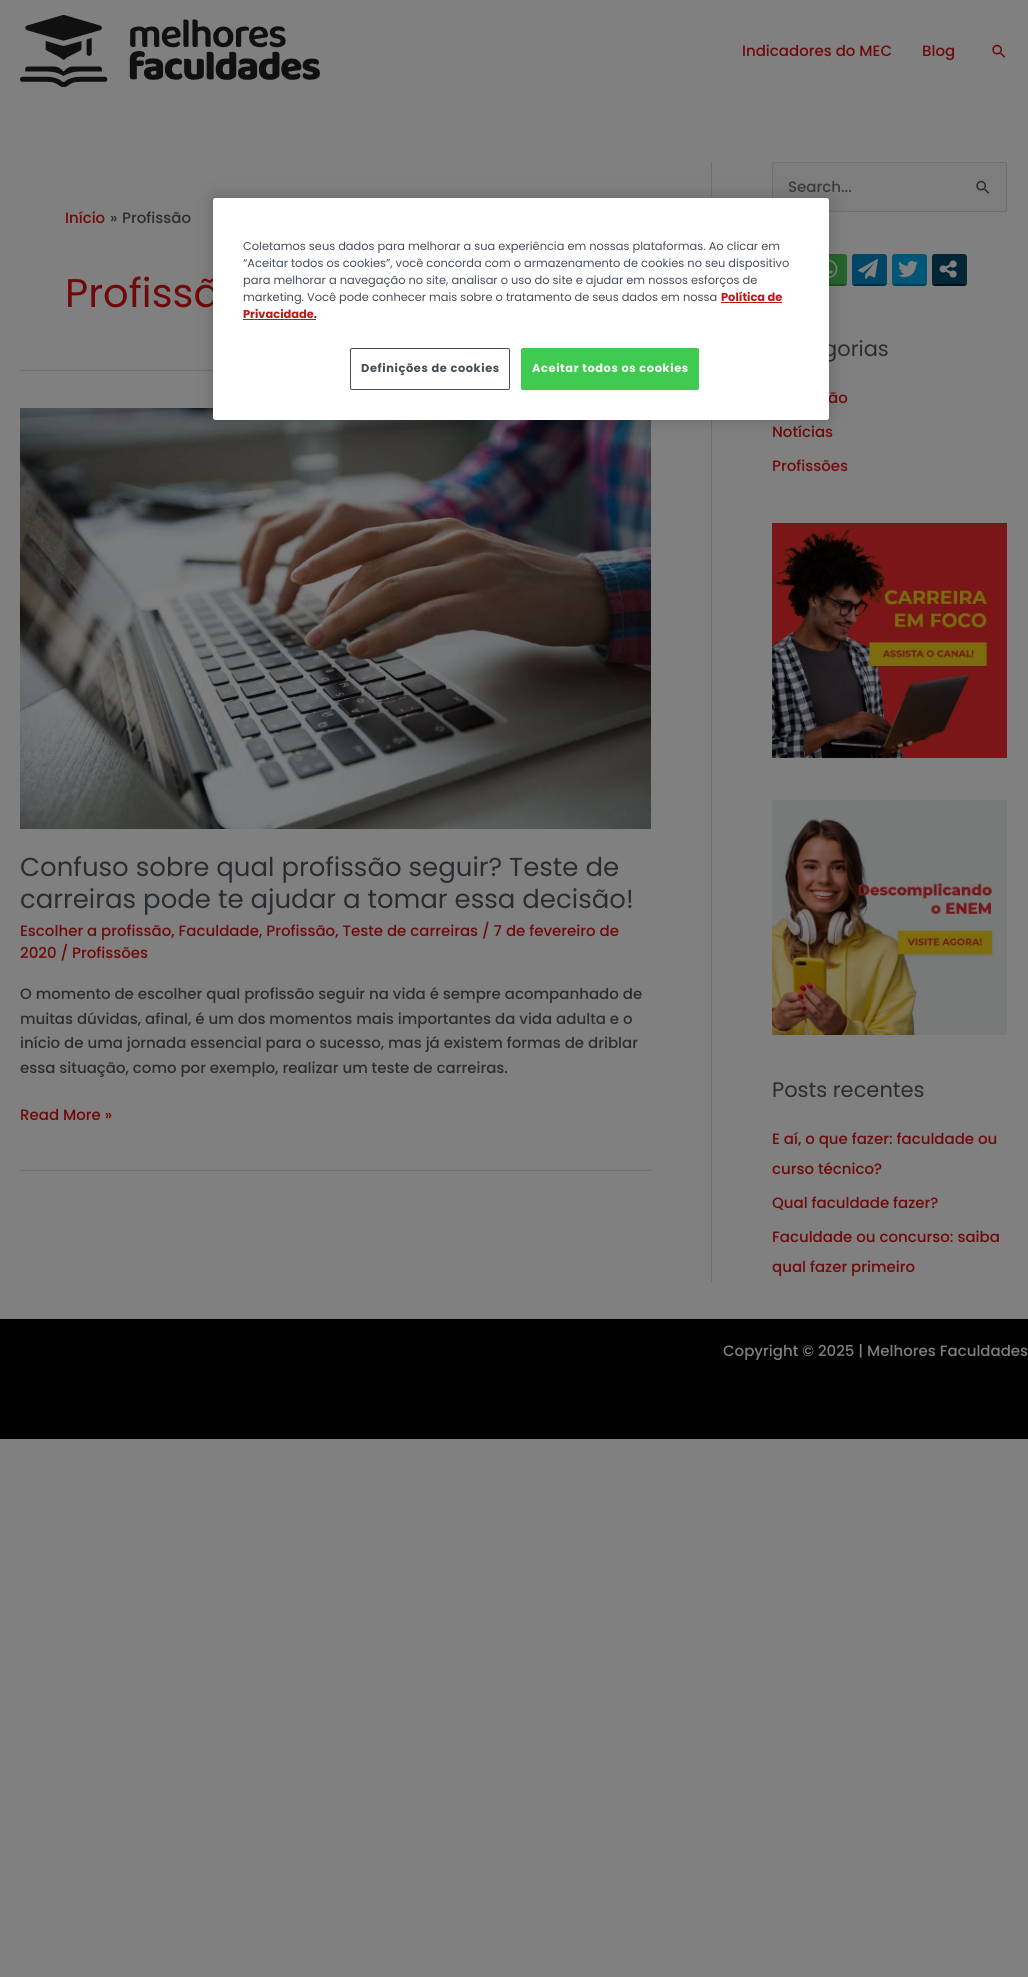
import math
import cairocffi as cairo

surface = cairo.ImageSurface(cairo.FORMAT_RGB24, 1028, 1977)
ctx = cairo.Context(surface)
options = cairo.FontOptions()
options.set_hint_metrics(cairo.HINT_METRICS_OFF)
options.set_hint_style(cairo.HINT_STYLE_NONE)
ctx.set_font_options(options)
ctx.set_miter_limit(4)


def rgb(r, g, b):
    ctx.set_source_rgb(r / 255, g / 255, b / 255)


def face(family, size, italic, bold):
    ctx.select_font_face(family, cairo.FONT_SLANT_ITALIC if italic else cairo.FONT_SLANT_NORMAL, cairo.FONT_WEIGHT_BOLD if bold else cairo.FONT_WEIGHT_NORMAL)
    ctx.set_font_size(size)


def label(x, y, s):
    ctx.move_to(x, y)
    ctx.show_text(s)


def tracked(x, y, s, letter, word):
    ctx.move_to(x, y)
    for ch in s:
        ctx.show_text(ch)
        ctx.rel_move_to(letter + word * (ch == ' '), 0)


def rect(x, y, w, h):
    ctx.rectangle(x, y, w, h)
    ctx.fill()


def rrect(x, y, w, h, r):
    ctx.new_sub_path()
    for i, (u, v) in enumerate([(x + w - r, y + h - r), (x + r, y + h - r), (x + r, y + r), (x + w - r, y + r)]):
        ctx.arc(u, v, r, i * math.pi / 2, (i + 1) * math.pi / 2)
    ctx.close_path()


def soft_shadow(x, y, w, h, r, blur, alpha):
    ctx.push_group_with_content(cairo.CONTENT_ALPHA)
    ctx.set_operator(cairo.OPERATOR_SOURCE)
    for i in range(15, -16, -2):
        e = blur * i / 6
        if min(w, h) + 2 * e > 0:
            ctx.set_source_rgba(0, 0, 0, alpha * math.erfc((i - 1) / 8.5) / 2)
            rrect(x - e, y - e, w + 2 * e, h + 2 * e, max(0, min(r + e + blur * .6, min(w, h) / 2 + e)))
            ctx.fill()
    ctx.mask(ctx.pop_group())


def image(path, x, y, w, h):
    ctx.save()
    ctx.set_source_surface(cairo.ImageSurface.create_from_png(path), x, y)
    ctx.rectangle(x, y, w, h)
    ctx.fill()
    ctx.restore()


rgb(128, 128, 128)
ctx.paint()
image('image0.png', 20, 15, 300, 72)
face('Poppins Medium', 15, 0, 0)
rgb(112, 9, 9)
label(742, 56, 'Indicadores do MEC')
label(922, 56, 'Blog')
image('image1.png', 992, 44, 14, 14)
rgb(111, 111, 111)
rect(20, 370, 193, 1)
rgb(112, 9, 9)
label(65, 223, 'Início')
rgb(42, 45, 48)
label(110, 223, '»')
label(122, 223, 'Profissão')
face('Poppins', 40, 0, 0)
rgb(112, 9, 9)
label(65, 307, 'Profissã')
rgb(111, 111, 111)
rect(20, 1170, 631, 1)
image('image2.png', 20, 408, 631, 421)
face('Poppins', 26, 0, 0)
rgb(42, 45, 48)
label(20, 876, 'Confuso sobre qual profissão seguir? Teste de')
label(20, 908, 'carreiras pode te ajudar a tomar essa decisão!')
face('Poppins Medium', 15, 0, 0)
rgb(112, 9, 9)
label(20, 936, 'Escolher a profissão, Faculdade, Profissão, Teste de carreiras / 7 de fevereiro de')
label(20, 958, '2020 / Profissões')
rgb(42, 45, 48)
label(20, 999, 'O momento de escolher qual profissão seguir na vida é sempre acompanhado de')
label(20, 1024, 'muitas dúvidas, afinal, é um dos momentos mais importantes da vida adulta e o')
label(20, 1048, 'início de uma jornada essencial para o sucesso, mas já existem formas de driblar')
label(20, 1073, 'essa situação, como por exemplo, realizar um teste de carreiras.')
rgb(112, 9, 9)
label(20, 1120, 'Read More »')
rgb(111, 111, 111)
rect(711, 162, 1, 1120)
rgb(125, 125, 125)
rrect(772.5, 162.5, 234, 49, 1.5)
ctx.fill_preserve()
rgb(111, 111, 111)
ctx.set_line_width(1)
ctx.stroke()
rgb(59, 59, 59)
label(788, 192, 'Search...')
image('image3.png', 976, 180, 14, 14)
rgb(26, 80, 31)
ctx.new_path()
ctx.move_to(812, 281)
ctx.curve_to(812, 287, 814, 286, 820, 286)
ctx.line_to(839, 286)
ctx.curve_to(845, 286, 847, 287, 847, 281)
ctx.curve_to(847, 282.5, 845.5, 284, 844, 284)
ctx.line_to(815, 284)
ctx.curve_to(813.5, 284, 812, 282.5, 812, 281)
ctx.close_path()
ctx.fill()
rgb(38, 99, 44)
rrect(812, 254, 35, 30, 3)
ctx.fill()
image('image4.png', 829, 259, 9, 20)
rgb(0, 48, 72)
ctx.new_path()
ctx.move_to(852, 281)
ctx.curve_to(852, 287, 854, 286, 860, 286)
ctx.line_to(879, 286)
ctx.curve_to(885, 286, 887, 287, 887, 281)
ctx.curve_to(887, 282.5, 885.5, 284, 884, 284)
ctx.line_to(855, 284)
ctx.curve_to(853.5, 284, 852, 282.5, 852, 281)
ctx.close_path()
ctx.fill()
rgb(0, 68, 102)
rrect(852, 254, 35, 30, 3)
ctx.fill()
image('image5.png', 858, 259, 20, 20)
rgb(0, 64, 88)
ctx.new_path()
ctx.move_to(892, 281)
ctx.curve_to(892, 287, 894, 286, 900, 286)
ctx.line_to(919, 286)
ctx.curve_to(925, 286, 927, 287, 927, 281)
ctx.curve_to(927, 282.5, 925.5, 284, 924, 284)
ctx.line_to(895, 284)
ctx.curve_to(893.5, 284, 892, 282.5, 892, 281)
ctx.close_path()
ctx.fill()
rgb(0, 86, 119)
rrect(892, 254, 35, 30, 3)
ctx.fill()
image('image6.png', 898, 260, 20, 18)
rgb(0, 17, 23)
ctx.new_path()
ctx.move_to(932, 281)
ctx.curve_to(932, 287, 934, 286, 940, 286)
ctx.line_to(959, 286)
ctx.curve_to(965, 286, 967, 287, 967, 281)
ctx.curve_to(967, 282.5, 965.5, 284, 964, 284)
ctx.line_to(935, 284)
ctx.curve_to(933.5, 284, 932, 282.5, 932, 281)
ctx.close_path()
ctx.fill()
rgb(1, 39, 54)
rrect(932, 254, 35, 30, 3)
ctx.fill()
image('image7.png', 939, 260, 18, 18)
face('Poppins', 21, 0, 0)
rgb(42, 45, 48)
label(823, 356, 'gorias')
face('Poppins Medium', 15, 0, 0)
rgb(112, 9, 9)
label(828, 403, 'ão')
label(772, 437, 'Notícias')
label(772, 471, 'Profissões')
image('image8.png', 772, 523, 235, 235)
image('image9.png', 772, 800, 235, 235)
face('Poppins', 21, 0, 0)
rgb(42, 45, 48)
label(772, 1097, 'Posts recentes')
face('Poppins Medium', 15, 0, 0)
rgb(112, 9, 9)
label(772, 1144, 'E aí, o que fazer: faculdade ou')
label(772, 1174, 'curso técnico?')
label(772, 1208, 'Qual faculdade fazer?')
label(772, 1242, 'Faculdade ou concurso: saiba')
label(772, 1272, 'qual fazer primeiro')
rgb(0, 0, 0)
rect(0, 1319, 1028, 120)
rgb(128, 128, 128)
label(723, 1356, 'Copyright © 2025 | Melhores Faculdades')
rgb(0, 0, 0)
soft_shadow(213, 198, 616, 222, 2.5, 9, 0.2)
rgb(255, 255, 255)
rrect(213, 198, 616, 222, 2.5)
ctx.fill()
face('Poppins', 11.4, 0, 0)
rgb(70, 77, 86)
label(243, 250, 'Coletamos seus dados para melhorar a sua experiência em nossas plataformas. Ao clicar em')
label(243, 267, '“Aceitar todos os cookies”, você concorda com o armazenamento de cookies no seu dispositivo')
label(243, 284, 'para melhorar a navegação no site, analisar o uso do site e ajudar em nossos esforços de')
label(243, 301, 'marketing. Você pode conhecer mais sobre o tratamento de seus dados em nossa')
face('Poppins', 11.4, 0, 1)
rgb(187, 25, 22)
label(721, 301, 'Política de')
rect(721, 302, 61, 1)
label(243, 318, 'Privacidade.')
rect(243, 319, 73, 1)
rrect(350.5, 348.5, 159, 41, 1.5)
rgb(70, 77, 86)
ctx.stroke()
tracked(361, 372, 'Definições de cookies', 0.6, 0)
rgb(63, 203, 80)
rrect(521.5, 348.5, 177, 41, 1.5)
ctx.fill_preserve()
ctx.stroke()
rgb(255, 255, 255)
tracked(532, 372, 'Aceitar todos os cookies', 0.6, 0)
surface.write_to_png('render.png')
